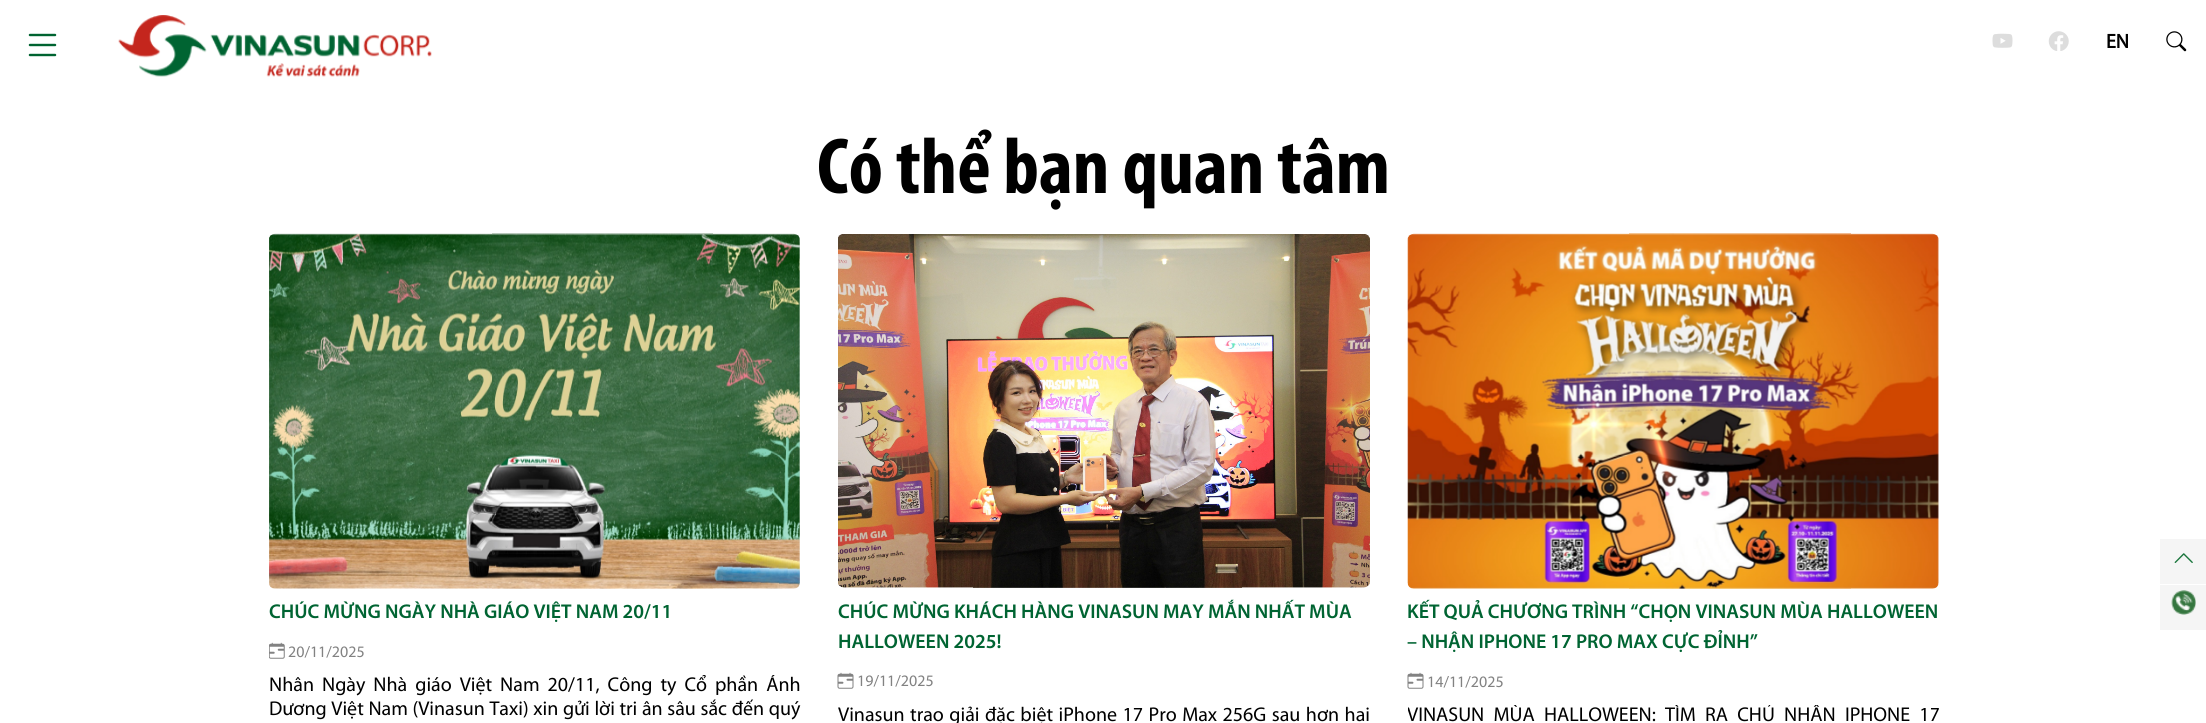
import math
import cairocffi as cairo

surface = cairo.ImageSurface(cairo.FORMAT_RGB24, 2206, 723)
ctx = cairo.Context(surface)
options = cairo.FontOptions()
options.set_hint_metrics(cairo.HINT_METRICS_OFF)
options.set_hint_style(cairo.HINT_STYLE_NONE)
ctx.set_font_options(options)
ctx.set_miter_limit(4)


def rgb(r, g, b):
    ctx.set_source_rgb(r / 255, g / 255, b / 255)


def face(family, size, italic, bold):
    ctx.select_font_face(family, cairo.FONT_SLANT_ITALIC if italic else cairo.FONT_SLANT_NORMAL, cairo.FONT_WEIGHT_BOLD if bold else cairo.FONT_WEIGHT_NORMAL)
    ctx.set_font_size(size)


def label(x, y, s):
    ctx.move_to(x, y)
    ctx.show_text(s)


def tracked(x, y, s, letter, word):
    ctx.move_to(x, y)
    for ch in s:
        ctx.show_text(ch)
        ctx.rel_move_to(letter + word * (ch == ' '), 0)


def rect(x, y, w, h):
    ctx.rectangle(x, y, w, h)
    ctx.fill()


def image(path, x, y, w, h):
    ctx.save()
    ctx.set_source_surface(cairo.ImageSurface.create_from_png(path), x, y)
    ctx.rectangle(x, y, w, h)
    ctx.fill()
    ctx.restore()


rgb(255, 255, 255)
ctx.paint()
image('image0.png', 28, 33, 29, 24)
image('image1.png', 118, 15, 314, 62)
image('image2.png', 1992, 33, 21, 15)
image('image3.png', 2048, 31, 21, 20)
face('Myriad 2', 20, 0, 1)
rgb(0, 0, 0)
label(2106, 48, 'EN')
image('image4.png', 2166, 31, 21, 21)
face('Myriad', 80, 0, 1)
label(817, 193, 'Có thể bạn quan tâm')
image('image5.png', 269, 233, 531, 356)
face('Myriad SemiBold', 20, 0, 0)
rgb(0, 100, 50)
label(269, 618, 'CHÚC MỪNG NGÀY NHÀ GIÁO VIỆT NAM 20/11')
image('image6.png', 269, 642, 16, 17)
face('Myriad', 16, 0, 0)
rgb(130, 130, 130)
label(288, 657, '20/11/2025')
ctx.save()
ctx.rectangle(269, 675, 531, 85)
ctx.clip()
face('Myriad', 20, 0, 0)
rgb(0, 0, 0)
tracked(269, 691, 'Nhân Ngày Nhà giáo Việt Nam 20/11, Công ty Cổ phần Ánh', 0, 3.75)
ctx.restore()
face('Myriad', 20, 0, 0)
rgb(0, 0, 0)
tracked(269, 715, 'Dương Việt Nam (Vinasun Taxi) xin gửi lời tri ân sâu sắc đến quý', 0, 0.4)
image('image7.png', 838, 234, 532, 354)
face('Myriad SemiBold', 20, 0, 0)
rgb(0, 100, 50)
label(838, 618, 'CHÚC MỪNG KHÁCH HÀNG VINASUN MAY MẮN NHẤT MÙA')
label(838, 648, 'HALLOWEEN 2025!')
image('image8.png', 837, 672, 17, 17)
face('Myriad', 16, 0, 0)
rgb(130, 130, 130)
label(857, 686, '19/11/2025')
face('Myriad', 20, 0, 0)
rgb(0, 0, 0)
tracked(838, 721, 'Vinasun trao giải đặc biệt iPhone 17 Pro Max 256G sau hơn hai', 0, 1.25)
image('image9.png', 1407, 233, 532, 356)
face('Myriad SemiBold', 20, 0, 0)
rgb(0, 100, 50)
label(1407, 618, 'KẾT QUẢ CHƯƠNG TRÌNH “CHỌN VINASUN MÙA HALLOWEEN')
label(1407, 648, '– NHẬN IPHONE 17 PRO MAX CỰC ĐỈNH”')
image('image8.png', 1407, 672, 17, 17)
face('Myriad', 16, 0, 0)
rgb(130, 130, 130)
label(1427, 687, '14/11/2025')
ctx.save()
ctx.rectangle(1408, 705, 531, 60)
ctx.clip()
face('Myriad', 20, 0, 0)
rgb(0, 0, 0)
tracked(1407, 721, 'VINASUN MÙA HALLOWEEN: TÌM RA CHỦ NHÂN IPHONE 17', 0, 5)
ctx.restore()
rgb(245, 245, 245)
rect(2160, 539, 46, 45)
image('image10.png', 2174, 553, 19, 10)
rect(2160, 585, 46, 45)
image('image11.png', 2171, 590, 25, 25)
surface.write_to_png('render.png')
